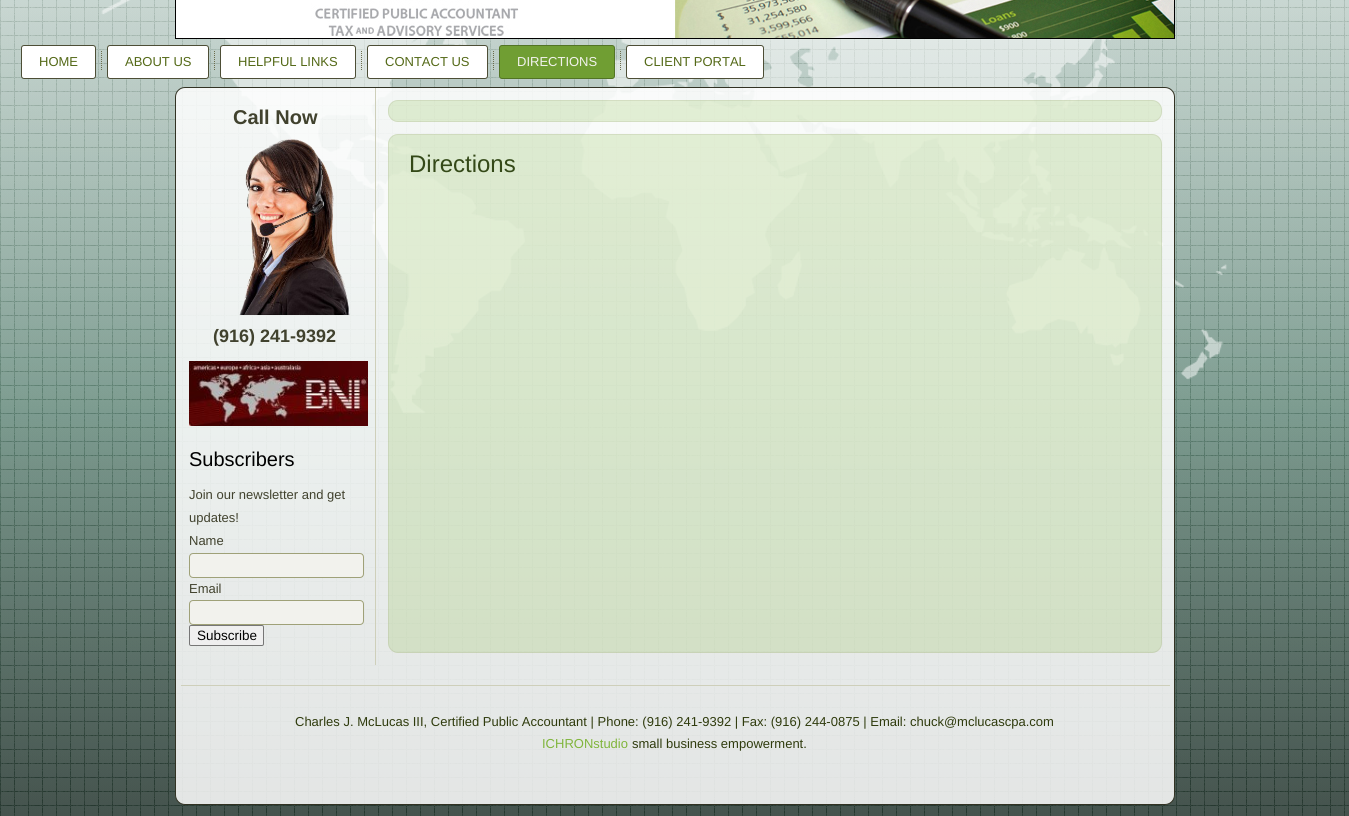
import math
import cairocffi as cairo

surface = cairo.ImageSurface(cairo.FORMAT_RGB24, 1349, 816)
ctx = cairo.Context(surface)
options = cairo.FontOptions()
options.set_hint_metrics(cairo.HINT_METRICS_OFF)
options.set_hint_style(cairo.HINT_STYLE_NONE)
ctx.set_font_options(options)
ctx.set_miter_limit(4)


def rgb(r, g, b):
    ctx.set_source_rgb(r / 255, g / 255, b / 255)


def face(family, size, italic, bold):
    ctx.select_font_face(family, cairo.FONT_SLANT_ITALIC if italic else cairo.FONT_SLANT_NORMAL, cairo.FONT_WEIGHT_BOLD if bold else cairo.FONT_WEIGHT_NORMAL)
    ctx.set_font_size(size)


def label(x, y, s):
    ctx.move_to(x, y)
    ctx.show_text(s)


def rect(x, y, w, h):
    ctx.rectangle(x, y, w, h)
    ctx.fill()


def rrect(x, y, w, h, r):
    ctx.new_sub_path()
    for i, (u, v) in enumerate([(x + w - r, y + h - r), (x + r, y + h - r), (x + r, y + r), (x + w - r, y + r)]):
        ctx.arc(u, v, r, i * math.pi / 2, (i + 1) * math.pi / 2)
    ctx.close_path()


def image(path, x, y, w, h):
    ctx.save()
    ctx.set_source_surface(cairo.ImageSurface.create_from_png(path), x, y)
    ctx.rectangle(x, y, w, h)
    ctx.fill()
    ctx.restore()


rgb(255, 255, 255)
ctx.paint()
image('image0.png', 0, 0, 1349, 816)
image('image1.png', 176, 0, 998, 38)
ctx.rectangle(175.5, -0.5, 999, 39)
rgb(0, 0, 0)
ctx.set_line_width(1)
ctx.stroke()
rgb(255, 255, 255)
rrect(21.5, 45.5, 74, 33, 2.5)
ctx.fill_preserve()
rgb(77, 78, 54)
ctx.stroke()
face('Liberation Sans', 13, 0, 0)
rgb(84, 105, 23)
label(39, 66, 'HOME')
image('image2.png', 101, 51, 1, 19)
rgb(255, 255, 255)
rrect(107.5, 45.5, 101, 33, 2.5)
ctx.fill_preserve()
rgb(77, 78, 54)
ctx.stroke()
rgb(84, 105, 23)
label(125, 66, 'ABOUT US')
image('image3.png', 214, 51, 1, 19)
rgb(255, 255, 255)
rrect(220.5, 45.5, 135, 33, 2.5)
ctx.fill_preserve()
rgb(77, 78, 54)
ctx.stroke()
rgb(84, 105, 23)
label(238, 66, 'HELPFUL LINKS')
image('image4.png', 361, 51, 1, 19)
rgb(255, 255, 255)
rrect(367.5, 45.5, 120, 33, 2.5)
ctx.fill_preserve()
rgb(77, 78, 54)
ctx.stroke()
rgb(84, 105, 23)
label(385, 66, 'CONTACT US')
image('image5.png', 493, 51, 1, 19)
rgb(112, 158, 51)
rrect(499.5, 45.5, 115, 33, 2.5)
ctx.fill_preserve()
rgb(82, 116, 37)
ctx.stroke()
rgb(242, 242, 237)
label(517, 66, 'DIRECTIONS')
image('image6.png', 620, 51, 1, 19)
rgb(255, 255, 255)
rrect(626.5, 45.5, 137, 33, 2.5)
ctx.fill_preserve()
rgb(77, 78, 54)
ctx.stroke()
rgb(84, 105, 23)
label(644, 66, 'CLIENT PORTAL')
ctx.set_source_rgba(1, 1, 1, 0.85)
rrect(175.5, 87.5, 999, 717, 9.5)
ctx.fill_preserve()
rgb(50, 51, 36)
ctx.stroke()
rgb(206, 207, 186)
rect(375, 88, 1, 577)
face('Liberation Sans', 20, 0, 1)
rgb(65, 66, 46)
label(233, 124, 'Call Now')
image('image7.png', 239, 139, 111, 176)
face('Liberation Sans', 18, 0, 1)
label(213, 342, '(916) 241-9392')
image('image8.png', 189, 361, 179, 65)
face('Liberation Sans', 20, 0, 0)
rgb(0, 0, 0)
label(189, 466, 'Subscribers')
face('Liberation Sans', 13, 0, 0)
rgb(65, 66, 46)
label(189, 499, 'Join our newsletter and get')
label(189, 522, 'updates!')
label(189, 545, 'Name')
rgb(242, 242, 237)
rrect(189.5, 553.5, 174, 24, 3.5)
ctx.fill_preserve()
rgb(159, 161, 120)
ctx.stroke()
rgb(65, 66, 46)
label(189, 593, 'Email')
rgb(242, 242, 237)
rrect(189.5, 600.5, 174, 24, 3.5)
ctx.fill_preserve()
rgb(159, 161, 120)
ctx.stroke()
rgb(239, 239, 239)
rrect(189.5, 625.5, 74, 20, 1.5)
ctx.fill_preserve()
rgb(118, 118, 118)
ctx.stroke()
face('Liberation Sans', 13.5, 0, 0)
rgb(0, 0, 0)
label(197, 640, 'Subscribe')
ctx.set_source_rgba(0.522, 0.741, 0.239, 0.2)
rrect(388, 100, 774, 22, 10)
ctx.fill()
rrect(388.5, 100.5, 773, 21, 9.5)
ctx.set_source_rgba(0.624, 0.631, 0.471, 0.2)
ctx.stroke()
ctx.set_source_rgba(0.522, 0.741, 0.239, 0.2)
rrect(388, 134, 774, 519, 10)
ctx.fill()
rrect(388.5, 134.5, 773, 518, 9.5)
ctx.set_source_rgba(0.624, 0.631, 0.471, 0.2)
ctx.stroke()
face('Liberation Sans', 24, 0, 0)
rgb(52, 73, 24)
label(409, 172, 'Directions')
rgb(206, 207, 186)
rect(181, 685, 989, 1)
face('Liberation Sans', 13, 0, 0)
rgb(47, 59, 13)
label(295, 726, 'Charles J. McLucas III, Certified Public Accountant | Phone: (916) 241-9392 | Fax: (916) 244-0875 | Email: chuck@mclucascpa.com')
rgb(128, 181, 59)
label(542, 748, 'ICHRONstudio')
rgb(47, 59, 13)
label(632, 748, 'small business empowerment.')
surface.write_to_png('render.png')
